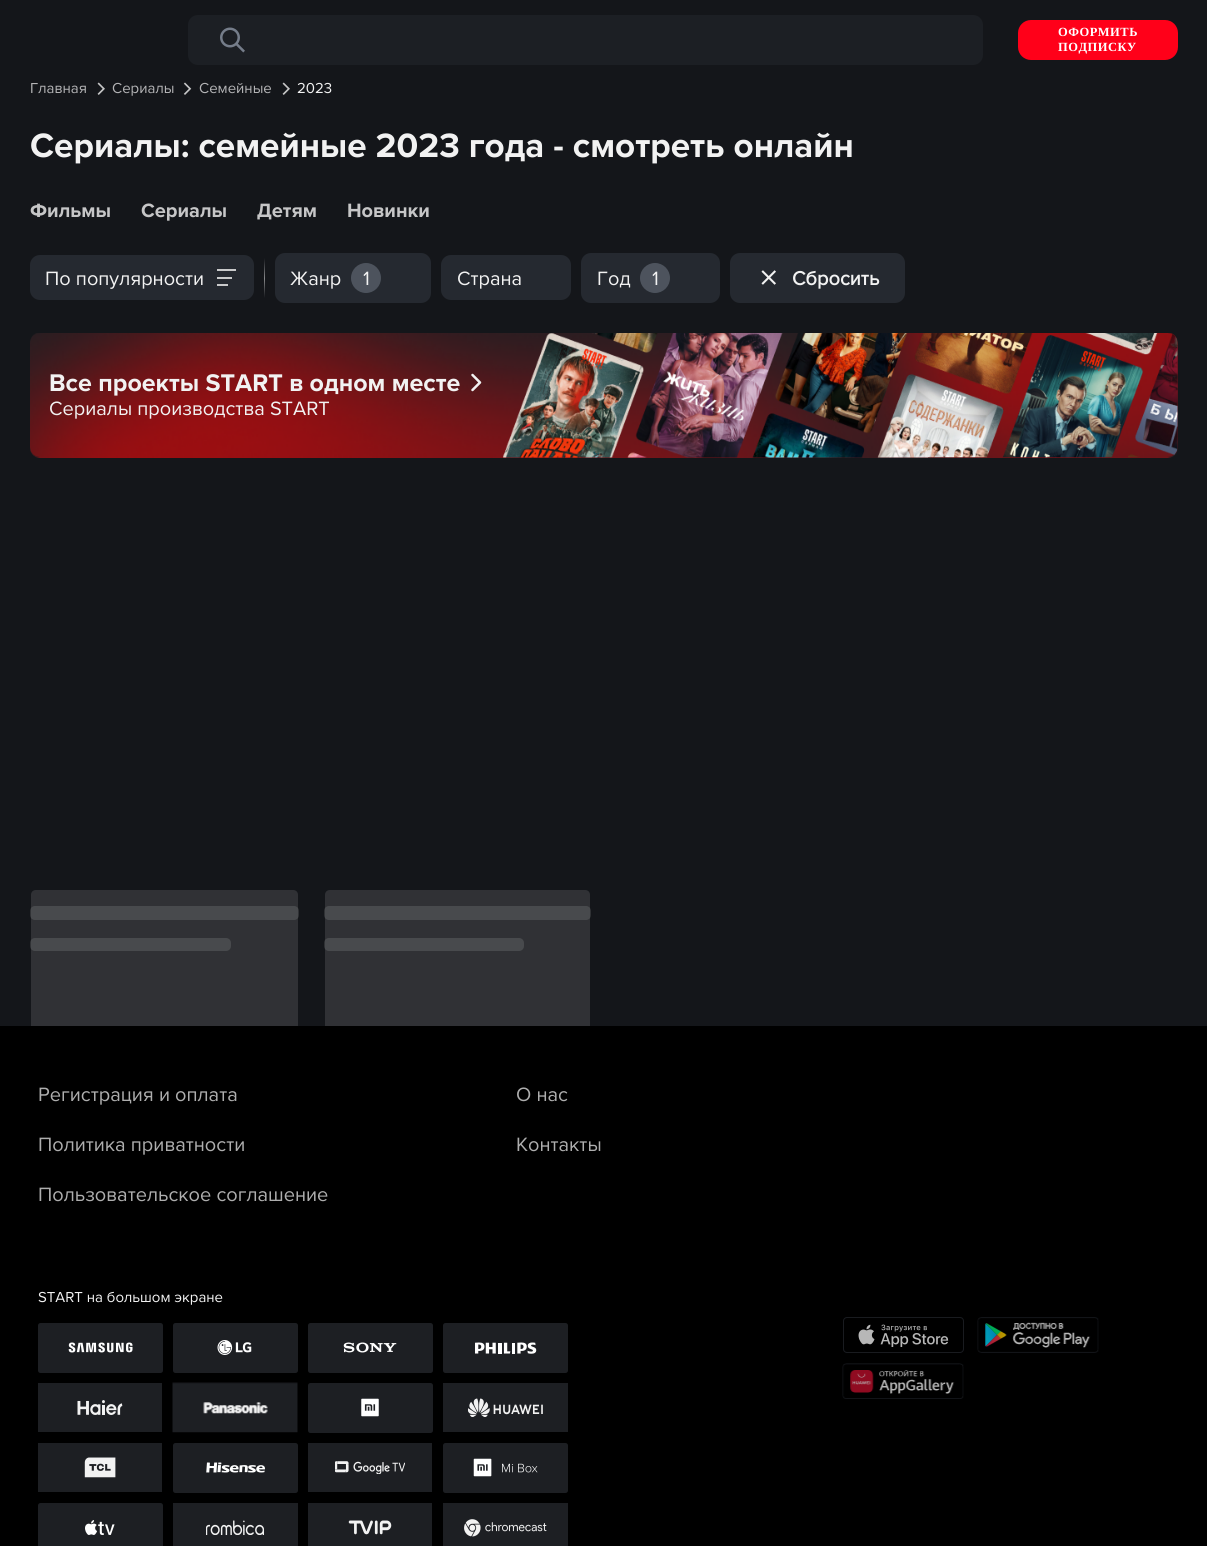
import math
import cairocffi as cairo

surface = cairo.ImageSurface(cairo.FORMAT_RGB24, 1207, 1546)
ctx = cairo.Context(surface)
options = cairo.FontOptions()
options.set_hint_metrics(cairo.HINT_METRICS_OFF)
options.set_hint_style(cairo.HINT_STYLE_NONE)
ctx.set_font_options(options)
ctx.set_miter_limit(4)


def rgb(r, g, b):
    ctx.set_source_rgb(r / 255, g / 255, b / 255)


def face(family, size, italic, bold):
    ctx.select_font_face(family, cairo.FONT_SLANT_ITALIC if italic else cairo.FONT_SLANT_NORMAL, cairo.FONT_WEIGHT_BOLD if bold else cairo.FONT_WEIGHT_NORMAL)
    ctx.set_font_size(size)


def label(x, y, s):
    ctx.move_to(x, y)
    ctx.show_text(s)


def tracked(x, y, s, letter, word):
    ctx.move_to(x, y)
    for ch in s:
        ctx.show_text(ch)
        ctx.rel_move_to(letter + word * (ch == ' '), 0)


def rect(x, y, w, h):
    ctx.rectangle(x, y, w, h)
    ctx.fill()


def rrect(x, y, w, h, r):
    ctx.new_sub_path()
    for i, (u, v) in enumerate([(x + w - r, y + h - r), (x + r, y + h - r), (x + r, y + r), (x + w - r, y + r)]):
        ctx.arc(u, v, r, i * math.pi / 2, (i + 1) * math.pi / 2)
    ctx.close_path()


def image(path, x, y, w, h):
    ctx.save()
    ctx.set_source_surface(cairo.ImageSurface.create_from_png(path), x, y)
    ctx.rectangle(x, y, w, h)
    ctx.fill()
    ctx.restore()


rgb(20, 22, 26)
ctx.paint()
rgb(28, 31, 36)
rrect(188, 15, 795, 50, 10)
ctx.fill()
image('image0.png', 220, 27, 25, 26)
rgb(255, 0, 25)
rrect(1018, 20, 160, 40, 13)
ctx.fill()
face('Liberation Serif', 12.5, 0, 1)
rgb(255, 255, 255)
tracked(1058, 36, 'ОФОРМИТЬ', 0.5, 0)
tracked(1058, 51, 'ПОДПИСКУ', 0.5, 0)
face('Proxima Nova', 15, 0, 0)
rgb(180, 180, 182)
label(30, 93, 'Главная')
image('image1.png', 97, 82, 8, 13)
label(112, 93, 'Сериалы')
image('image2.png', 183, 82, 9, 13)
label(199, 93, 'Семейные')
image('image1.png', 282, 82, 8, 13)
rgb(242, 242, 242)
label(297, 93, '2023')
face('Proxima Nova', 35, 0, 1)
label(30, 157, 'Сериалы: семейные 2023 года - смотреть онлайн')
face('Proxima Nova', 20, 0, 1)
rgb(198, 198, 199)
label(30, 217, 'Фильмы')
label(141, 217, 'Сериалы')
label(257, 217, 'Детям')
label(347, 217, 'Новинки')
rgb(37, 41, 48)
rrect(30, 255, 224, 45, 10)
ctx.fill()
face('Proxima Nova', 20, 0, 0)
rgb(242, 242, 242)
label(45, 285, 'По популярности')
rgb(201, 202, 203)
rect(217, 269, 19, 2)
rect(217, 277, 15, 2)
rect(217, 284, 11, 2)
gradient = cairo.LinearGradient(264, 258, 264, 298)
gradient.add_color_stop_rgba(0, 0.078, 0.086, 0.102, 1)
gradient.add_color_stop_rgba(0.51, 0.529, 0.533, 0.541, 1)
gradient.add_color_stop_rgba(1, 0.078, 0.086, 0.102, 1)
ctx.set_source(gradient)
rect(264, 258, 1, 40)
rgb(37, 41, 48)
rrect(275, 253, 156, 50, 10)
ctx.fill()
rgb(242, 242, 242)
label(290, 285, 'Жанр')
rgb(77, 83, 93)
ctx.new_path()
ctx.arc(366, 278, 15, 0, 2 * math.pi)
ctx.fill()
rgb(242, 242, 242)
label(363, 285, '1')
rgb(37, 41, 48)
rrect(441, 255, 130, 45, 10)
ctx.fill()
rgb(242, 242, 242)
label(457, 285, 'Страна')
rgb(37, 41, 48)
rrect(581, 253, 139, 50, 10)
ctx.fill()
rgb(242, 242, 242)
label(597, 285, 'Год')
rgb(77, 83, 93)
ctx.new_path()
ctx.arc(655, 278, 15, 0, 2 * math.pi)
ctx.fill()
rgb(242, 242, 242)
label(652, 285, '1')
rgb(37, 41, 48)
rrect(730, 253, 175, 50, 10)
ctx.fill()
image('image3.png', 761, 270, 15, 15)
face('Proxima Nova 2', 20, 0, 1)
rgb(242, 242, 242)
label(792, 285, 'Сбросить')
rgb(29, 31, 35)
rrect(30, 333, 1148, 125, 10)
ctx.fill()
image('image4.png', 30, 333, 1148, 125)
face('Proxima Nova', 25, 0, 1)
rgb(242, 242, 242)
label(49, 391, 'Все проекты START в одном месте')
image('image5.png', 471, 373, 11, 19)
face('Proxima Nova', 20, 0, 0)
label(49, 415, 'Сериалы производства START')
image('image6.png', 503, 333, 675, 125)
rgb(48, 50, 53)
rrect(30, 906, 269, 14, 5)
ctx.fill()
rrect(30, 938, 201, 13, 5)
ctx.fill()
ctx.set_source_rgba(1, 1, 1, 0.12)
ctx.new_path()
ctx.move_to(36, 890)
ctx.line_to(293, 890)
ctx.curve_to(296, 890, 298, 892, 298, 895)
ctx.line_to(298, 1026)
ctx.line_to(31, 1026)
ctx.line_to(31, 895)
ctx.curve_to(31, 892, 33, 890, 36, 890)
ctx.close_path()
ctx.fill()
rgb(48, 50, 53)
rrect(324, 906, 267, 14, 5)
ctx.fill()
rrect(324, 938, 200, 13, 5)
ctx.fill()
ctx.set_source_rgba(1, 1, 1, 0.12)
ctx.new_path()
ctx.move_to(330, 890)
ctx.line_to(585, 890)
ctx.curve_to(588, 890, 590, 892, 590, 895)
ctx.line_to(590, 1026)
ctx.line_to(325, 1026)
ctx.line_to(325, 895)
ctx.curve_to(325, 892, 327, 890, 330, 890)
ctx.close_path()
ctx.fill()
rgb(0, 0, 0)
rect(0, 1026, 1207, 520)
rgb(174, 174, 174)
label(38, 1101, 'Регистрация и оплата')
label(38, 1151, 'Политика приватности')
label(38, 1201, 'Пользовательское соглашение')
label(516, 1101, 'О нас')
label(516, 1151, 'Контакты')
face('Proxima Nova', 15, 0, 0)
rgb(242, 242, 242)
label(38, 1302, 'START на большом экране')
image('image7.png', 38, 1323, 125, 50)
image('image8.png', 173, 1323, 125, 50)
image('image9.png', 308, 1323, 125, 50)
image('image10.png', 443, 1323, 125, 50)
image('image11.png', 38, 1383, 124, 49)
image('image12.png', 172, 1382, 126, 51)
image('image13.png', 308, 1383, 125, 50)
image('image14.png', 443, 1383, 125, 49)
image('image15.png', 38, 1443, 124, 49)
image('image16.png', 173, 1443, 125, 50)
image('image17.png', 308, 1443, 124, 49)
image('image18.png', 443, 1443, 125, 50)
image('image19.png', 38, 1503, 125, 43)
image('image20.png', 173, 1503, 125, 43)
image('image21.png', 308, 1503, 124, 43)
image('image22.png', 443, 1503, 125, 43)
image('image23.png', 843, 1317, 121, 36)
image('image24.png', 977, 1317, 122, 36)
image('image25.png', 842, 1363, 122, 36)
surface.write_to_png('render.png')
